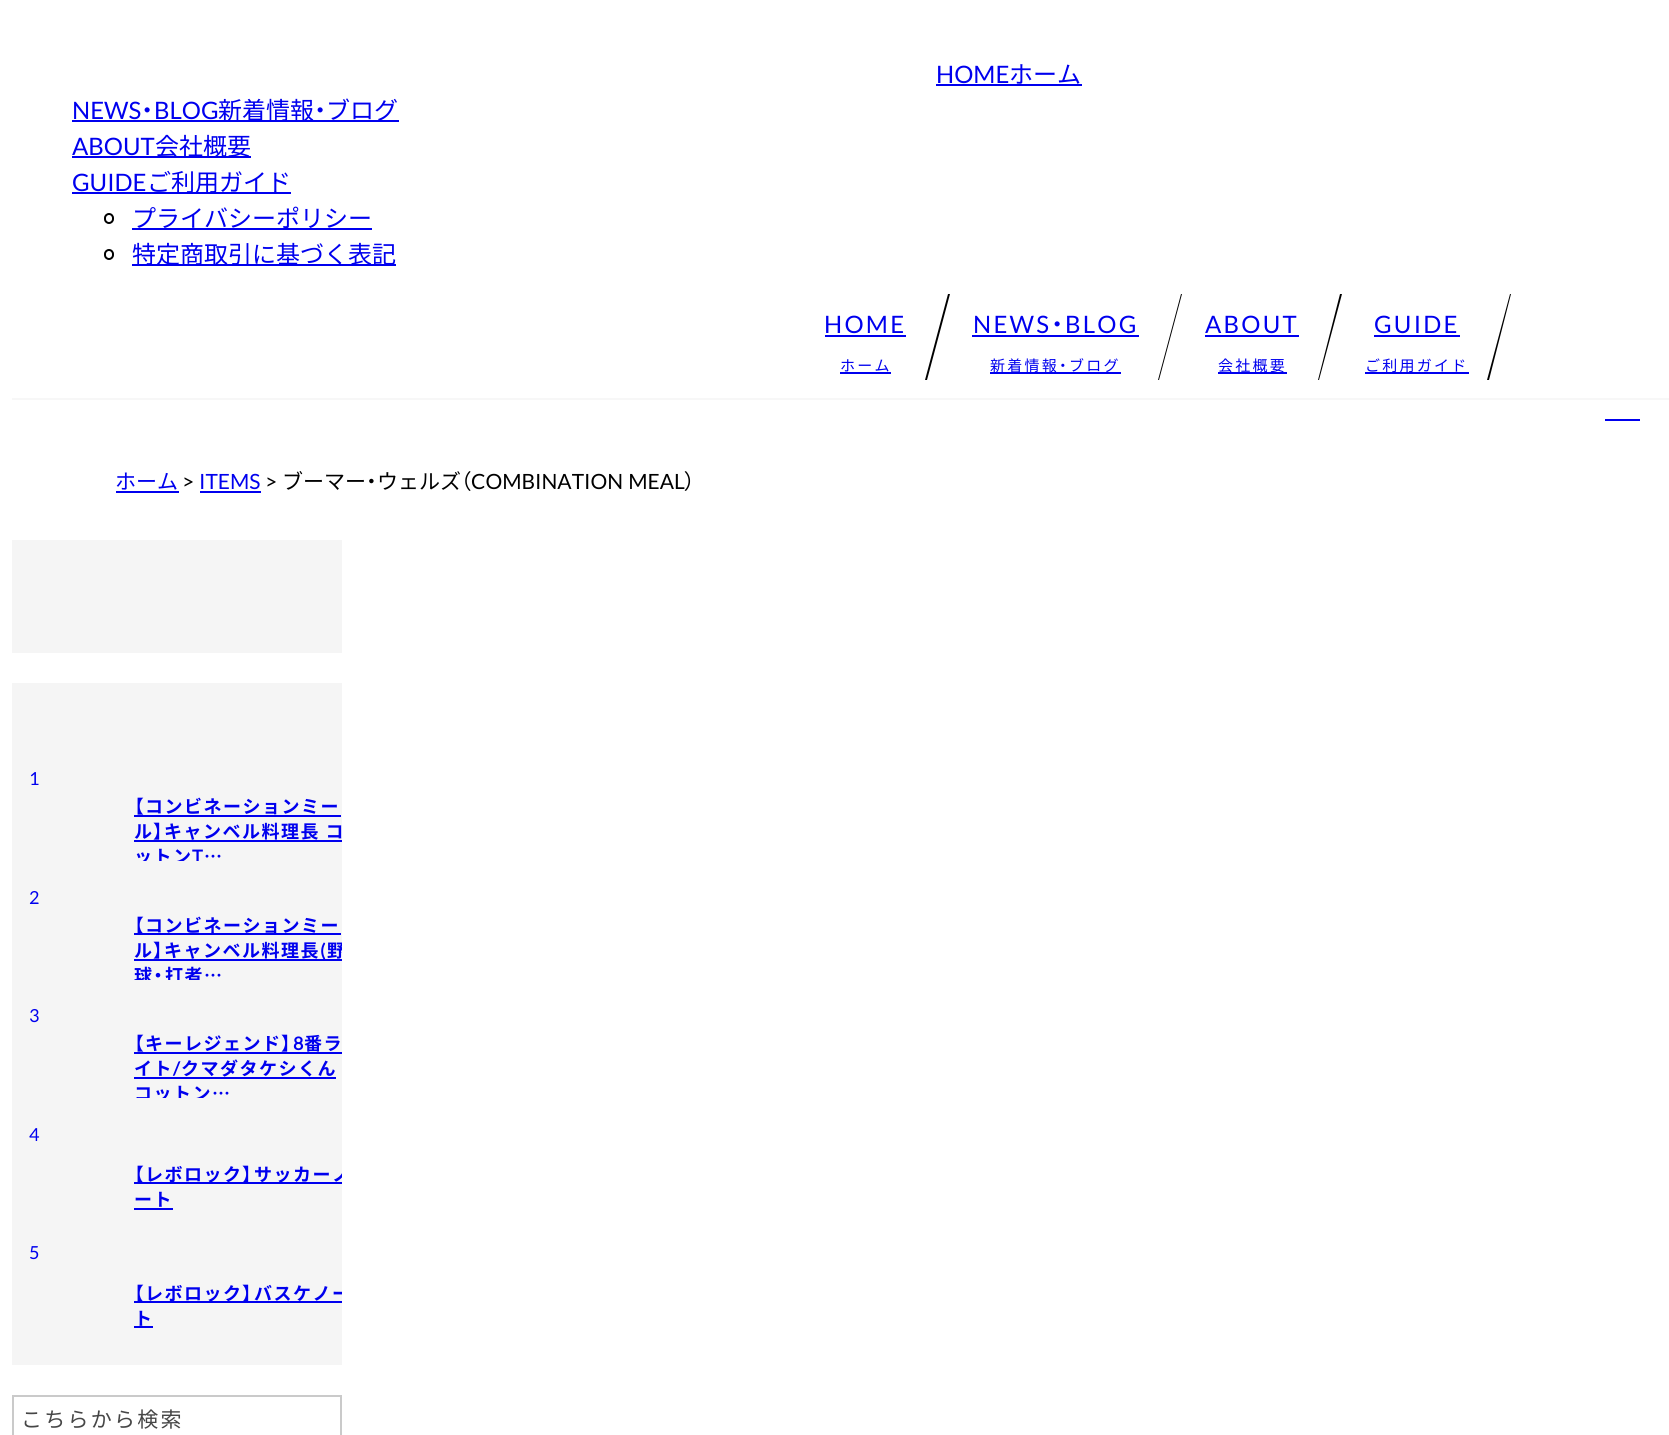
import math
import cairocffi as cairo

surface = cairo.ImageSurface(cairo.FORMAT_RGB24, 1669, 1435)
ctx = cairo.Context(surface)
options = cairo.FontOptions()
options.set_hint_metrics(cairo.HINT_METRICS_OFF)
options.set_hint_style(cairo.HINT_STYLE_NONE)
ctx.set_font_options(options)
ctx.set_miter_limit(4)


def rgb(r, g, b):
    ctx.set_source_rgb(r / 255, g / 255, b / 255)


def face(family, size, italic, bold):
    ctx.select_font_face(family, cairo.FONT_SLANT_ITALIC if italic else cairo.FONT_SLANT_NORMAL, cairo.FONT_WEIGHT_BOLD if bold else cairo.FONT_WEIGHT_NORMAL)
    ctx.set_font_size(size)


def label(x, y, s):
    ctx.move_to(x, y)
    ctx.show_text(s)


def tracked(x, y, s, letter, word):
    ctx.move_to(x, y)
    for ch in s:
        ctx.show_text(ch)
        ctx.rel_move_to(letter + word * (ch == ' '), 0)


def rect(x, y, w, h):
    ctx.rectangle(x, y, w, h)
    ctx.fill()


def rrect(x, y, w, h, r):
    ctx.new_sub_path()
    for i, (u, v) in enumerate([(x + w - r, y + h - r), (x + r, y + h - r), (x + r, y + r), (x + w - r, y + r)]):
        ctx.arc(u, v, r, i * math.pi / 2, (i + 1) * math.pi / 2)
    ctx.close_path()


rgb(255, 255, 255)
ctx.paint()
face('Lato', 24, 0, 0)
rgb(0, 0, 238)
label(936, 83, 'HOME')
rect(936, 84, 146, 2)
face('Noto Sans JP', 24, 0, 0)
label(1009, 83, 'ホーム')
face('Lato', 24, 0, 0)
label(72, 119, 'NEWS')
rect(72, 120, 327, 2)
face('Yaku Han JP', 24, 0, 0)
label(141, 119, '・')
face('Lato', 24, 0, 0)
label(154, 119, 'BLOG')
face('Noto Sans JP', 24, 0, 0)
label(218, 119, '新着情報')
face('Yaku Han JP', 24, 0, 0)
label(314, 119, '・')
face('Noto Sans JP', 24, 0, 0)
label(326, 119, 'ブログ')
face('Lato', 24, 0, 0)
label(72, 155, 'ABOUT')
rect(72, 156, 179, 2)
face('Noto Sans JP', 24, 0, 0)
label(155, 155, '会社概要')
face('Lato', 24, 0, 0)
label(72, 191, 'GUIDE')
rect(72, 192, 219, 2)
face('Noto Sans JP', 24, 0, 0)
label(147, 191, 'ご利用ガイド')
rrect(105, 214, 8, 9, 4)
rgb(0, 0, 0)
ctx.stroke()
rgb(0, 0, 238)
label(132, 227, 'プライバシーポリシー')
rect(132, 228, 240, 2)
rrect(105, 250, 8, 9, 4)
rgb(0, 0, 0)
ctx.stroke()
rgb(0, 0, 238)
rect(132, 264, 264, 2)
label(132, 263, '特定商取引に基づく表記')
face('Lato', 24, 0, 0)
tracked(824, 333, 'HOME', 2.25, 0)
rect(825, 335, 81, 2)
face('Noto Sans JP', 15, 0, 0)
tracked(840, 371, 'ホーム', 2.25, 0)
rect(840, 372, 51, 2)
rgb(0, 0, 0)
ctx.new_path()
ctx.move_to(948, 294)
ctx.line_to(950, 294)
ctx.line_to(927, 380)
ctx.line_to(925, 380)
ctx.close_path()
ctx.fill()
face('Lato', 24, 0, 0)
rgb(0, 0, 238)
tracked(973, 333, 'NEWS', 2.25, 0)
rect(972, 335, 167, 2)
face('Yaku Han JP', 24, 0, 0)
tracked(1051, 333, '・', 2.25, 0)
face('Lato', 24, 0, 0)
tracked(1065, 333, 'BLOG', 2.25, 0)
rect(990, 372, 131, 2)
face('Noto Sans JP', 15, 0, 0)
tracked(990, 371, '新着情報', 2.25, 0)
face('Yaku Han JP', 15, 0, 0)
tracked(1059, 371, '・', 2.25, 0)
face('Noto Sans JP', 15, 0, 0)
tracked(1069, 371, 'ブログ', 2.25, 0)
rgb(0, 0, 0)
ctx.new_path()
ctx.move_to(1181, 294)
ctx.line_to(1182, 294)
ctx.line_to(1159, 380)
ctx.line_to(1158, 380)
ctx.close_path()
ctx.fill()
face('Lato', 24, 0, 0)
rgb(0, 0, 238)
tracked(1205, 333, 'ABOUT', 2.25, 0)
rect(1205, 335, 94, 2)
rect(1218, 372, 69, 2)
face('Noto Sans JP', 15, 0, 0)
tracked(1218, 371, '会社概要', 2.25, 0)
rgb(0, 0, 0)
ctx.new_path()
ctx.move_to(1340, 294)
ctx.line_to(1342, 294)
ctx.line_to(1319, 380)
ctx.line_to(1318, 380)
ctx.close_path()
ctx.fill()
face('Lato', 24, 0, 0)
rgb(0, 0, 238)
tracked(1374, 333, 'GUIDE', 2.25, 0)
rect(1374, 335, 86, 2)
rect(1365, 372, 104, 2)
face('Noto Sans JP', 15, 0, 0)
tracked(1365, 371, 'ご利用ガイド', 2.25, 0)
rgb(0, 0, 0)
ctx.new_path()
ctx.move_to(1510, 294)
ctx.line_to(1511, 294)
ctx.line_to(1489, 380)
ctx.line_to(1487, 380)
ctx.close_path()
ctx.fill()
rgb(247, 247, 247)
rect(12, 398, 1657, 2)
rgb(0, 0, 238)
rect(1605, 419, 35, 2)
face('Noto Sans JP', 21, 0, 0)
label(115, 489, 'ホーム')
rect(116, 491, 63, 2)
face('Lato', 21, 0, 0)
rgb(0, 0, 0)
label(182, 489, '>')
rgb(0, 0, 238)
label(199, 489, 'ITEMS')
rect(200, 491, 61, 2)
rgb(0, 0, 0)
label(265, 489, '>')
face('Noto Sans JP', 21, 0, 0)
label(282, 489, 'ブーマー')
face('Yaku Han JP', 21, 0, 0)
label(366, 489, '・')
face('Noto Sans JP', 21, 0, 0)
label(377, 489, 'ウェルズ')
face('Yaku Han JP', 21, 0, 0)
label(461, 489, '（')
face('Lato', 21, 0, 0)
tracked(471, 489, 'COMBINATION MEAL', 0, 1)
face('Yaku Han JP', 21, 0, 0)
label(684, 489, '）')
rgb(245, 245, 245)
rect(12, 540, 330, 113)
rect(12, 683, 330, 682)
face('Lato', 18, 0, 0)
rgb(0, 0, 238)
tracked(29, 785, '1', 1.5, 0)
face('Yaku Han JP', 18, 0, 1)
tracked(134, 813, '【', 1.5, 0)
rect(134, 815, 207, 2)
face('Noto Sans JP', 18, 0, 1)
tracked(145, 813, 'コンビネーションミー', 1.5, 0)
tracked(134, 838, 'ル', 1.5, 0)
rect(134, 840, 208, 2)
face('Yaku Han JP', 18, 0, 1)
tracked(153, 838, '】', 1.5, 0)
face('Noto Sans JP', 18, 0, 1)
tracked(164, 838, 'キャンベル料理長 コ', 1.5, 0)
ctx.save()
ctx.rectangle(23, 765, 319, 96)
ctx.clip()
tracked(134, 863, 'ットン', 1.5, 0)
face('Lato', 18, 0, 1)
tracked(192, 863, 'T', 1.5, 0)
ctx.restore()
face('Yaku Han JP', 18, 0, 1)
tracked(204, 863, '…', 1.5, 0)
face('Lato', 18, 0, 0)
tracked(29, 904, '2', 1.5, 0)
rect(134, 933, 207, 2)
face('Yaku Han JP', 18, 0, 1)
tracked(134, 932, '【', 1.5, 0)
face('Noto Sans JP', 18, 0, 1)
tracked(145, 932, 'コンビネーションミー', 1.5, 0)
tracked(134, 957, 'ル', 1.5, 0)
face('Yaku Han JP', 18, 0, 1)
tracked(153, 957, '】', 1.5, 0)
face('Noto Sans JP', 18, 0, 1)
tracked(164, 957, 'キャンベル料理長', 1.5, 0)
rect(134, 959, 208, 2)
face('Lato', 18, 0, 1)
tracked(320, 957, '(', 1.5, 0)
ctx.save()
ctx.rectangle(23, 884, 319, 96)
ctx.clip()
face('Noto Sans JP', 18, 0, 1)
tracked(327, 957, '野', 1.5, 0)
tracked(134, 982, '球', 1.5, 0)
ctx.restore()
face('Yaku Han JP', 18, 0, 1)
tracked(153, 982, '・', 1.5, 0)
ctx.save()
ctx.rectangle(23, 884, 319, 96)
ctx.clip()
face('Noto Sans JP', 18, 0, 1)
tracked(165, 982, '打者', 1.5, 0)
ctx.restore()
tracked(204, 982, '…', 1.5, 0)
face('Lato', 18, 0, 0)
tracked(29, 1022, '3', 1.5, 0)
face('Yaku Han JP', 18, 0, 1)
tracked(134, 1050, '【', 1.5, 0)
face('Noto Sans JP', 18, 0, 1)
tracked(145, 1050, 'キーレジェンド', 1.5, 0)
rect(134, 1052, 208, 2)
face('Yaku Han JP', 18, 0, 1)
tracked(281, 1050, '】', 1.5, 0)
face('Lato', 18, 0, 1)
tracked(293, 1050, '8', 1.5, 0)
face('Noto Sans JP', 18, 0, 1)
tracked(304, 1050, '番ラ', 1.5, 0)
tracked(134, 1075, 'イト', 1.5, 0)
face('Lato', 18, 0, 1)
tracked(173, 1075, '/', 1.5, 0)
rect(134, 1077, 202, 2)
face('Noto Sans JP', 18, 0, 1)
tracked(181, 1075, 'クマダタケシくん', 1.5, 0)
ctx.save()
ctx.rectangle(23, 1002, 319, 96)
ctx.clip()
tracked(134, 1100, 'コットン', 1.5, 0)
ctx.restore()
face('Yaku Han JP', 18, 0, 1)
tracked(212, 1100, '…', 1.5, 0)
face('Lato', 18, 0, 0)
tracked(29, 1141, '4', 1.5, 0)
rect(134, 1182, 208, 2)
face('Yaku Han JP', 18, 0, 1)
tracked(134, 1181, '【', 1.5, 0)
face('Noto Sans JP', 18, 0, 1)
tracked(145, 1181, 'レボロック', 1.5, 0)
face('Yaku Han JP', 18, 0, 1)
tracked(242, 1181, '】', 1.5, 0)
ctx.save()
ctx.rectangle(23, 1121, 319, 96)
ctx.clip()
face('Noto Sans JP', 18, 0, 1)
tracked(254, 1181, 'サッカーノ', 1.5, 0)
ctx.restore()
face('Noto Sans JP', 18, 0, 1)
tracked(134, 1206, 'ート', 1.5, 0)
rect(134, 1208, 39, 2)
face('Lato', 18, 0, 0)
tracked(29, 1259, '5', 1.5, 0)
rect(134, 1301, 208, 2)
face('Yaku Han JP', 18, 0, 1)
tracked(134, 1300, '【', 1.5, 0)
face('Noto Sans JP', 18, 0, 1)
tracked(145, 1300, 'レボロック', 1.5, 0)
face('Yaku Han JP', 18, 0, 1)
tracked(242, 1300, '】', 1.5, 0)
ctx.save()
ctx.rectangle(23, 1239, 319, 96)
ctx.clip()
face('Noto Sans JP', 18, 0, 1)
tracked(254, 1300, 'バスケノー', 1.5, 0)
ctx.restore()
face('Noto Sans JP', 18, 0, 1)
tracked(134, 1325, 'ト', 1.5, 0)
rect(134, 1326, 19, 2)
ctx.rectangle(13, 1396, 328, 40)
rgb(202, 202, 202)
ctx.stroke()
face('Noto Sans JP', 21, 0, 0)
rgb(70, 70, 70)
tracked(21, 1427, 'こちらから検索', 2.25, 0)
surface.write_to_png('render.png')
